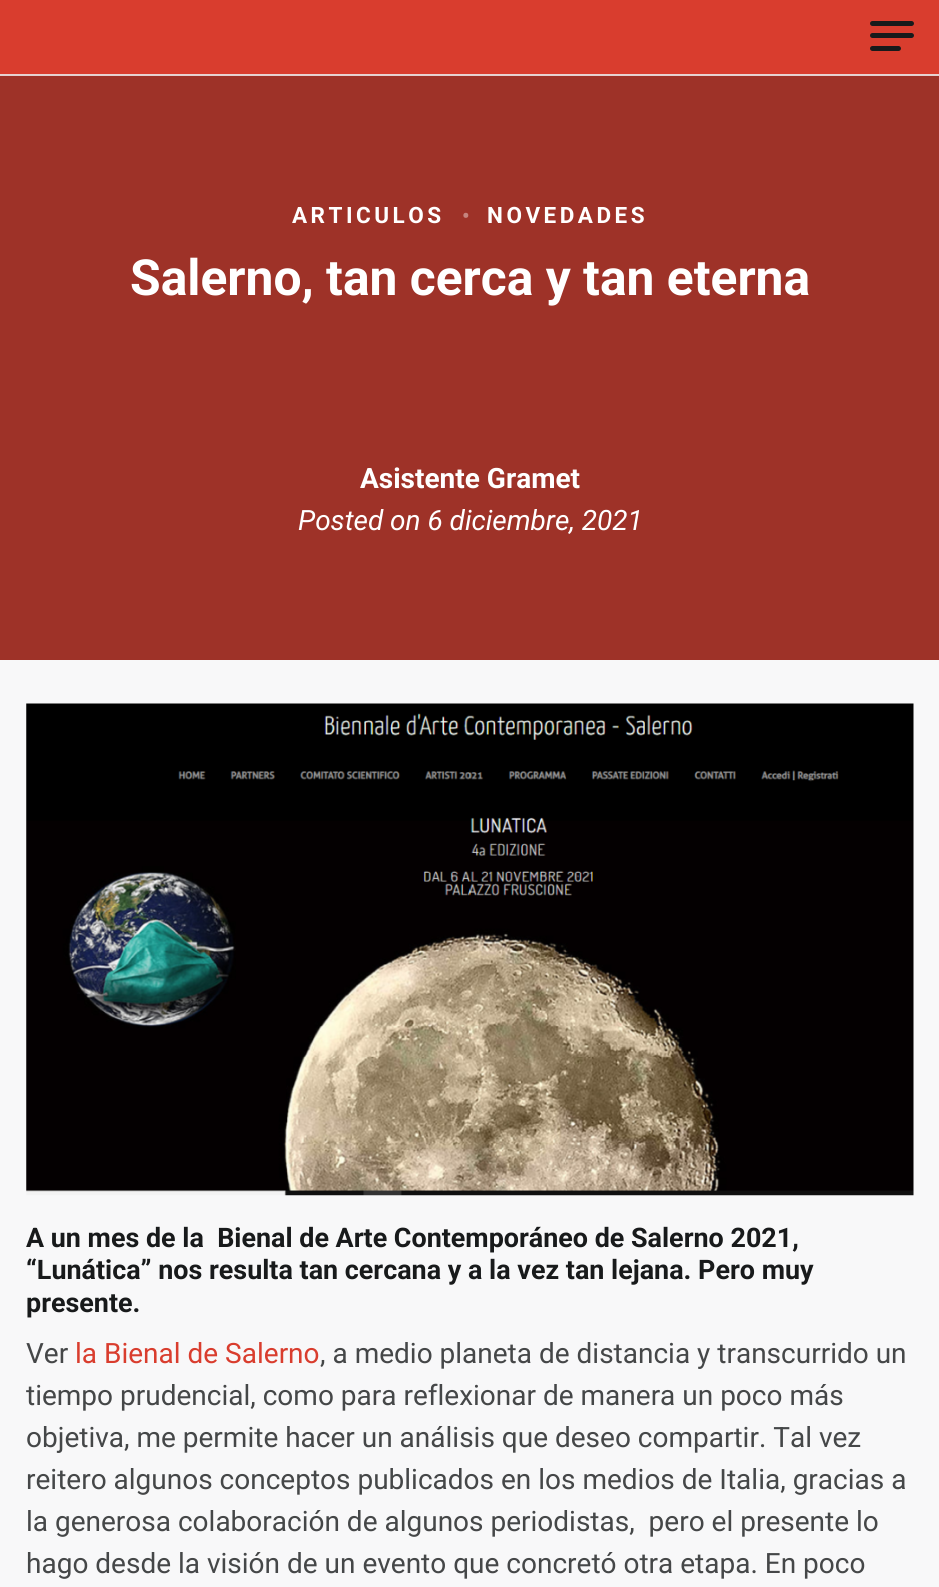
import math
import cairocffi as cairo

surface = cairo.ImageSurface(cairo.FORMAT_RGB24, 939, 1587)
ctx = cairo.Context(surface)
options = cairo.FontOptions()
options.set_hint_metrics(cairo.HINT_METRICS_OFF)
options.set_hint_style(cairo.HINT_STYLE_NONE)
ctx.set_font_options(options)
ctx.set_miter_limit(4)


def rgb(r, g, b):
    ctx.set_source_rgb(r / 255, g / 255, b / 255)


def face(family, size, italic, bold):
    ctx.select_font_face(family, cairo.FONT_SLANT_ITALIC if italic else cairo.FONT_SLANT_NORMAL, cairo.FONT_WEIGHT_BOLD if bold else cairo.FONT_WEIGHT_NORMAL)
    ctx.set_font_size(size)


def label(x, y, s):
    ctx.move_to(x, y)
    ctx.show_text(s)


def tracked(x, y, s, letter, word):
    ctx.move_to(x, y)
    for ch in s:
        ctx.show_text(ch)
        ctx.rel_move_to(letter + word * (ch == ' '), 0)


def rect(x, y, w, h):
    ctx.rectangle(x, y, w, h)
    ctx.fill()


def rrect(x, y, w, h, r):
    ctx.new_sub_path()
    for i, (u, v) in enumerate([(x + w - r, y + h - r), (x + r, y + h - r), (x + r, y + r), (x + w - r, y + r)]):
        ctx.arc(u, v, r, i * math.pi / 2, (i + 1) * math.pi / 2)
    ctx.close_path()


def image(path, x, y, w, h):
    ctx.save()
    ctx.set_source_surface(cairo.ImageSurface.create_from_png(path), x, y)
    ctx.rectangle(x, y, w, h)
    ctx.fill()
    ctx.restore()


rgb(248, 248, 249)
ctx.paint()
rgb(217, 61, 46)
ctx.new_path()
ctx.move_to(0, 0)
ctx.line_to(0, 659)
ctx.line_to(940, 622)
ctx.line_to(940, 0)
ctx.close_path()
ctx.fill()
rgb(158, 50, 40)
rect(0, 75, 939, 585)
ctx.set_source_rgba(0.929, 0.929, 0.929, 0.85)
rect(0, 74, 939, 2)
rgb(24, 26, 27)
rrect(870, 33, 44, 5, 2.5)
ctx.fill()
rrect(870, 21, 44, 5, 2.5)
ctx.fill()
rrect(870, 46, 31, 5, 2.5)
ctx.fill()
face('Roboto', 22.5, 0, 1)
rgb(255, 255, 255)
tracked(292, 223, 'ARTICULOS', 3.5, 0)
face('Roboto', 21, 0, 1)
rgb(197, 132, 126)
tracked(462, 223, '•', 3.5, 0)
face('Roboto', 22.5, 0, 1)
rgb(255, 255, 255)
tracked(487, 223, 'NOVEDADES', 3.5, 0)
face('Roboto', 49.75, 0, 1)
label(130, 295, 'Salerno, tan cerca y tan eterna')
face('Roboto', 28, 0, 1)
label(360, 488, 'Asistente Gramet')
face('Roboto', 28, 1, 0)
label(298, 530, 'Posted on 6 diciembre, 2021')
image('image0.png', 26, 703, 888, 493)
face('Roboto', 26.9, 0, 1)
rgb(24, 26, 27)
label(26, 1247, 'A un mes de la  Bienal de Arte Contemporáneo de Salerno 2021,')
label(26, 1279, '“Lunática” nos resulta tan cercana y a la vez tan lejana. Pero muy')
label(26, 1312, 'presente.')
face('Roboto', 28, 0, 0)
rgb(69, 71, 72)
label(26, 1363, 'Ver')
rgb(217, 61, 46)
label(75, 1363, 'la Bienal de Salerno')
rgb(69, 71, 72)
label(320, 1363, ', a medio planeta de distancia y transcurrido un')
label(26, 1405, 'tiempo prudencial, como para reflexionar de manera un poco más')
label(26, 1447, 'objetiva, me permite hacer un análisis que deseo compartir. Tal vez')
label(26, 1489, 'reitero algunos conceptos publicados en los medios de Italia, gracias a')
label(26, 1531, 'la generosa colaboración de algunos periodistas,  pero el presente lo')
label(26, 1573, 'hago desde la visión de un evento que concretó otra etapa. En poco')
surface.write_to_png('render.png')
